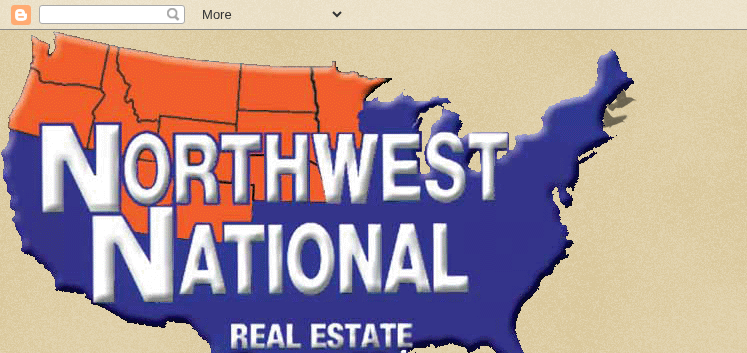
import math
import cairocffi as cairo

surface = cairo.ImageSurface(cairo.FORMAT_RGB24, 747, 353)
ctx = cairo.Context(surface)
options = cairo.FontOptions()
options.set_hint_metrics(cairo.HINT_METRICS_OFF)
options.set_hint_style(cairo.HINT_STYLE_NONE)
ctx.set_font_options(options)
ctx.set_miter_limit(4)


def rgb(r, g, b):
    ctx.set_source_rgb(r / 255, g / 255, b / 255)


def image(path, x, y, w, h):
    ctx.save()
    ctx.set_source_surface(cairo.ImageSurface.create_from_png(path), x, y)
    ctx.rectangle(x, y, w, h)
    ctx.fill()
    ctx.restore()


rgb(192, 161, 84)
ctx.paint()
image('image0.png', 0, 0, 747, 353)
image('image1.png', 0, 0, 747, 30)
image('image3.png', 603, 89, 34, 39)
image('image2.png', 1, 31, 633, 322)
surface.write_to_png('render.png')
